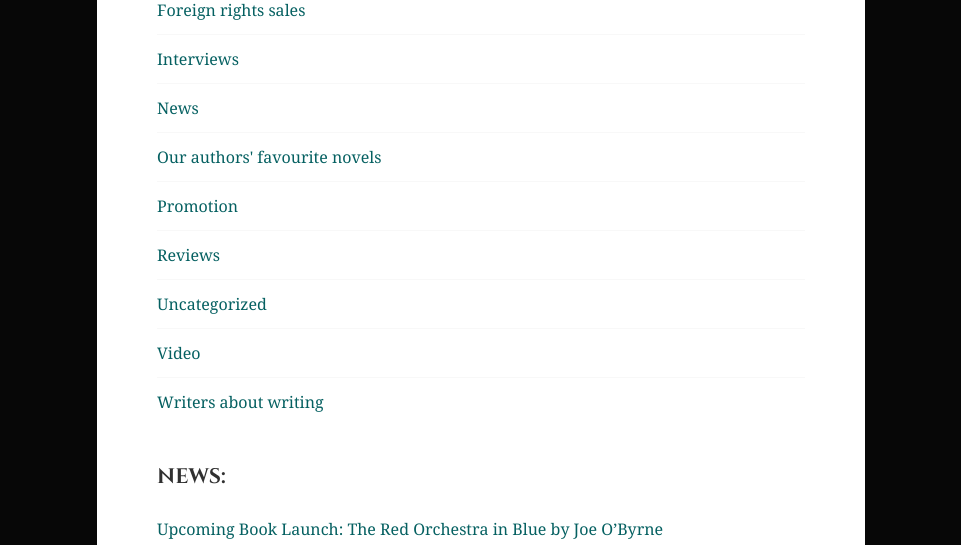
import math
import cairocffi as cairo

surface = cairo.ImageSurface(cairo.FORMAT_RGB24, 961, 545)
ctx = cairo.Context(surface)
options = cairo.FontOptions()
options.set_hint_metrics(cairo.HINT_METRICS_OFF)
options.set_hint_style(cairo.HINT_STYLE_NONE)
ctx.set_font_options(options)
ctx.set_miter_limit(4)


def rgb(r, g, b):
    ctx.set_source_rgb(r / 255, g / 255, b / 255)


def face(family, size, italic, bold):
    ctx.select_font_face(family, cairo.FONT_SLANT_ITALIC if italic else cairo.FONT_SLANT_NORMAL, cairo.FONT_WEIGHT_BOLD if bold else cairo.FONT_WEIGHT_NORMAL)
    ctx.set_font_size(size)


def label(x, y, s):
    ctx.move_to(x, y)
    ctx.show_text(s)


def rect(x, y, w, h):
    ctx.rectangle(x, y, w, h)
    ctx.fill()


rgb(7, 7, 7)
ctx.paint()
rgb(255, 255, 255)
rect(97, 0, 768, 545)
face('Noto Serif', 16, 0, 0)
rgb(5, 96, 97)
label(157, 16, 'Foreign rights sales')
rgb(248, 248, 248)
rect(157, 34, 648, 1)
rgb(5, 96, 97)
label(157, 65, 'Interviews')
rgb(248, 248, 248)
rect(157, 83, 648, 1)
rgb(5, 96, 97)
label(157, 114, 'News')
rgb(248, 248, 248)
rect(157, 132, 648, 1)
rgb(5, 96, 97)
label(157, 163, 'Our authors\' favourite novels')
rgb(248, 248, 248)
rect(157, 181, 648, 1)
rgb(5, 96, 97)
label(157, 212, 'Promotion')
rgb(248, 248, 248)
rect(157, 230, 648, 1)
rgb(5, 96, 97)
label(157, 261, 'Reviews')
rgb(248, 248, 248)
rect(157, 279, 648, 1)
rgb(5, 96, 97)
label(157, 310, 'Uncategorized')
rgb(248, 248, 248)
rect(157, 328, 648, 1)
rgb(5, 96, 97)
label(157, 359, 'Video')
rgb(248, 248, 248)
rect(157, 377, 648, 1)
rgb(5, 96, 97)
label(157, 408, 'Writers about writing')
face('Cinzel', 21, 0, 1)
rgb(48, 48, 48)
label(157, 483, 'NEWS:')
face('Noto Serif', 16, 0, 0)
rgb(5, 96, 97)
label(157, 535, 'Upcoming Book Launch: The Red Orchestra in Blue by Joe O’Byrne')
surface.write_to_png('render.png')
